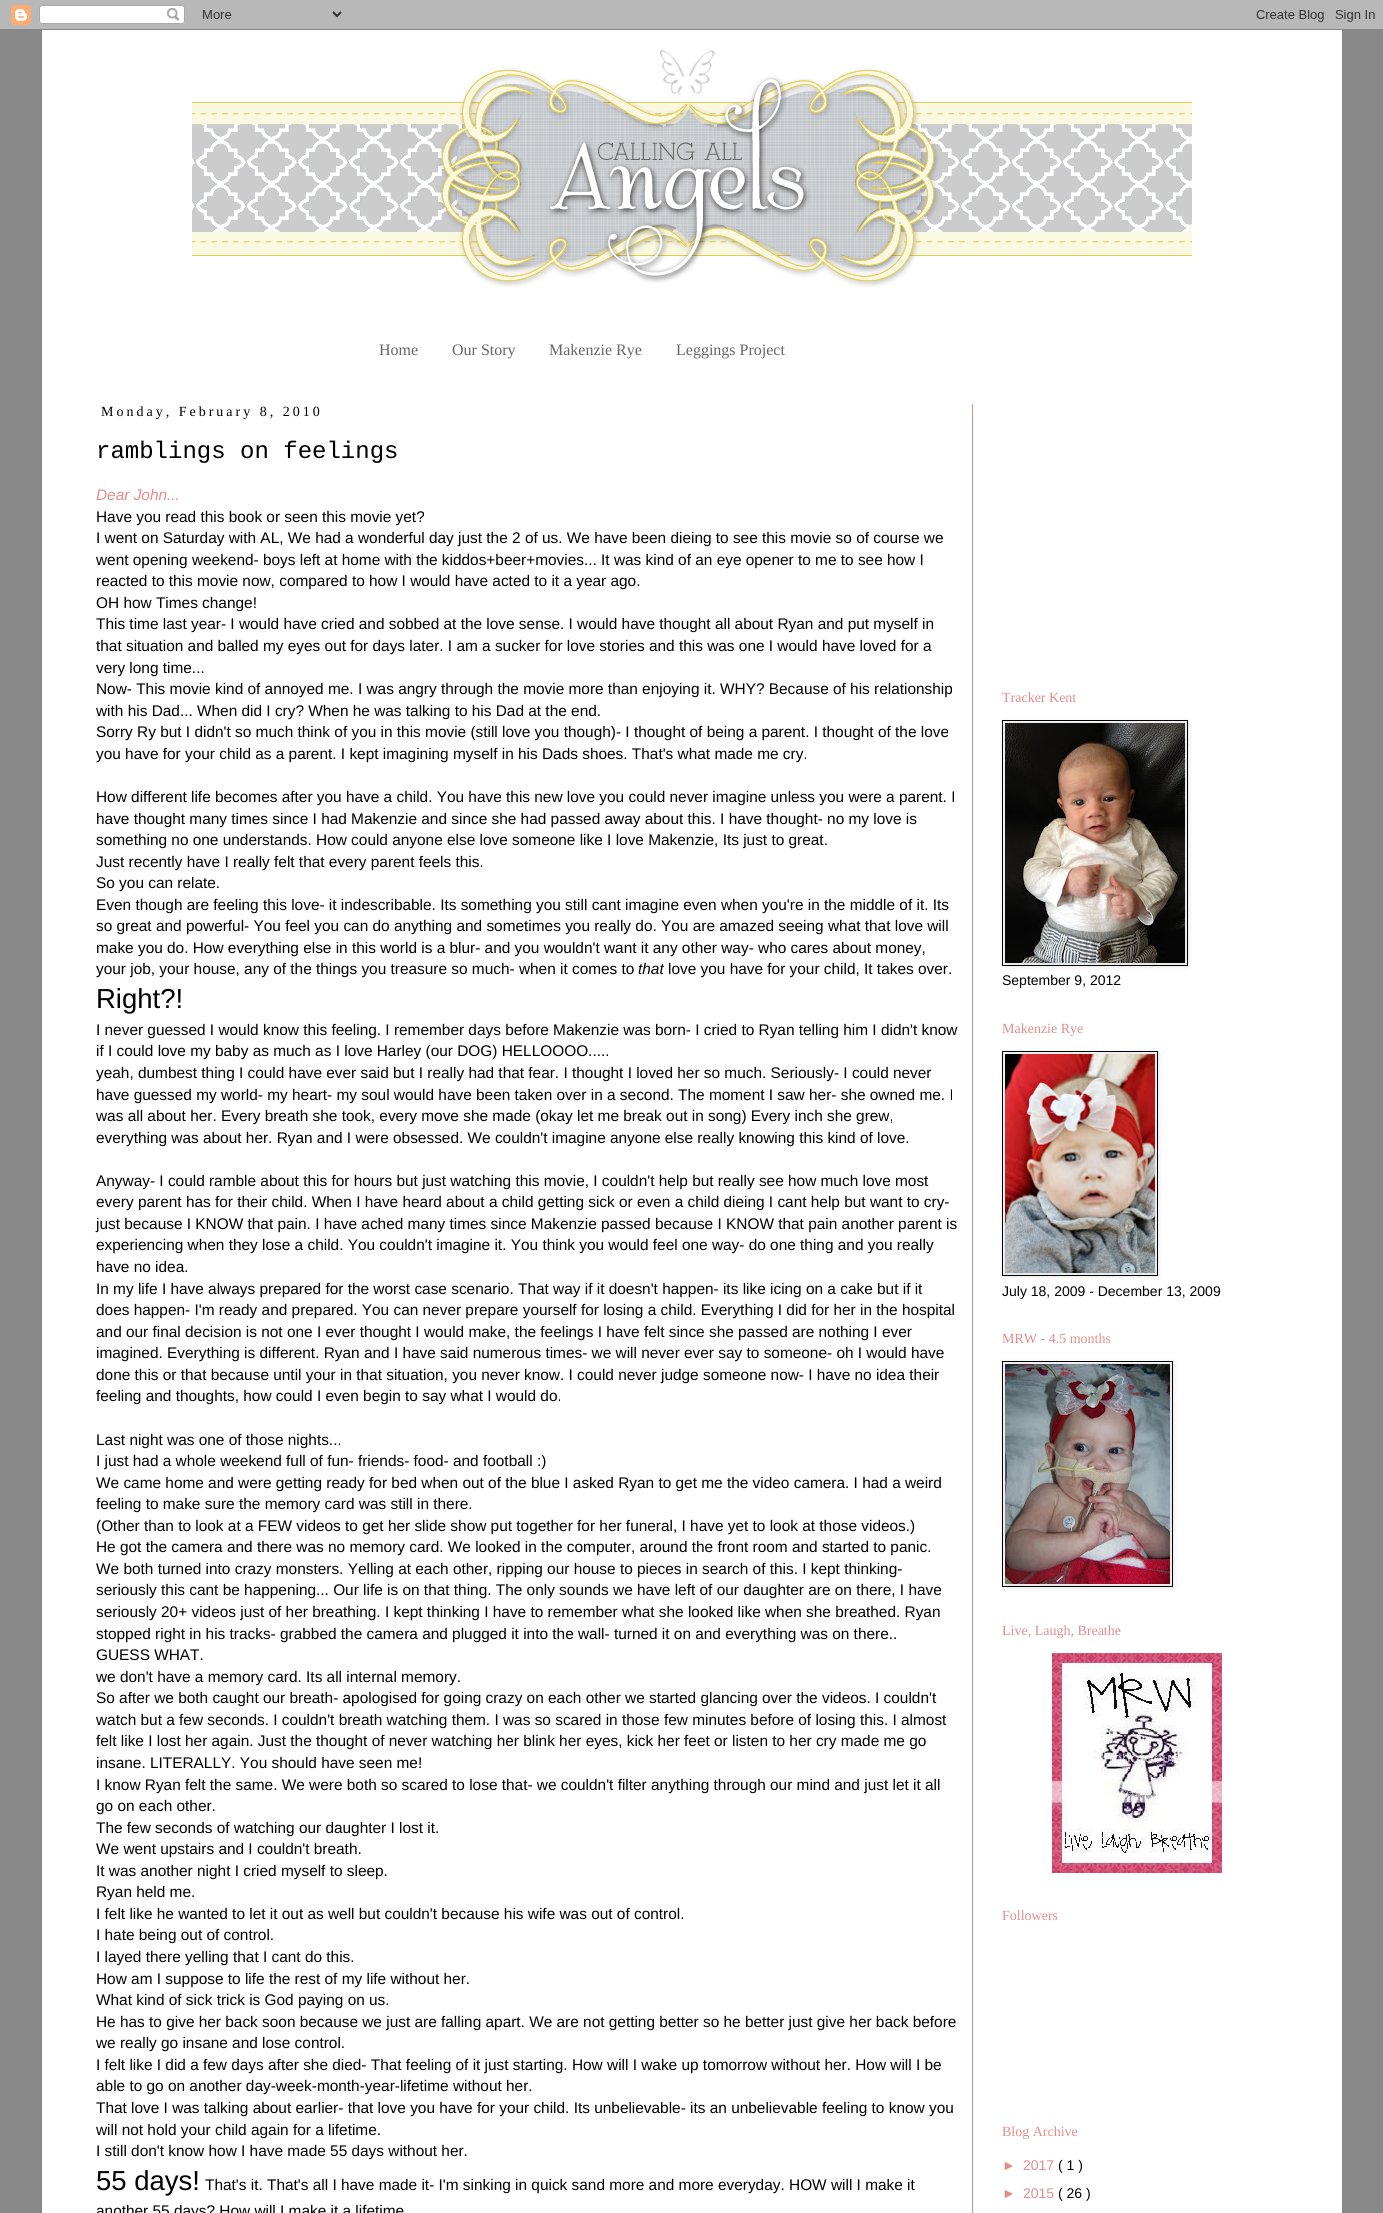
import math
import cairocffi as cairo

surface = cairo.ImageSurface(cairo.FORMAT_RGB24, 1383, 2213)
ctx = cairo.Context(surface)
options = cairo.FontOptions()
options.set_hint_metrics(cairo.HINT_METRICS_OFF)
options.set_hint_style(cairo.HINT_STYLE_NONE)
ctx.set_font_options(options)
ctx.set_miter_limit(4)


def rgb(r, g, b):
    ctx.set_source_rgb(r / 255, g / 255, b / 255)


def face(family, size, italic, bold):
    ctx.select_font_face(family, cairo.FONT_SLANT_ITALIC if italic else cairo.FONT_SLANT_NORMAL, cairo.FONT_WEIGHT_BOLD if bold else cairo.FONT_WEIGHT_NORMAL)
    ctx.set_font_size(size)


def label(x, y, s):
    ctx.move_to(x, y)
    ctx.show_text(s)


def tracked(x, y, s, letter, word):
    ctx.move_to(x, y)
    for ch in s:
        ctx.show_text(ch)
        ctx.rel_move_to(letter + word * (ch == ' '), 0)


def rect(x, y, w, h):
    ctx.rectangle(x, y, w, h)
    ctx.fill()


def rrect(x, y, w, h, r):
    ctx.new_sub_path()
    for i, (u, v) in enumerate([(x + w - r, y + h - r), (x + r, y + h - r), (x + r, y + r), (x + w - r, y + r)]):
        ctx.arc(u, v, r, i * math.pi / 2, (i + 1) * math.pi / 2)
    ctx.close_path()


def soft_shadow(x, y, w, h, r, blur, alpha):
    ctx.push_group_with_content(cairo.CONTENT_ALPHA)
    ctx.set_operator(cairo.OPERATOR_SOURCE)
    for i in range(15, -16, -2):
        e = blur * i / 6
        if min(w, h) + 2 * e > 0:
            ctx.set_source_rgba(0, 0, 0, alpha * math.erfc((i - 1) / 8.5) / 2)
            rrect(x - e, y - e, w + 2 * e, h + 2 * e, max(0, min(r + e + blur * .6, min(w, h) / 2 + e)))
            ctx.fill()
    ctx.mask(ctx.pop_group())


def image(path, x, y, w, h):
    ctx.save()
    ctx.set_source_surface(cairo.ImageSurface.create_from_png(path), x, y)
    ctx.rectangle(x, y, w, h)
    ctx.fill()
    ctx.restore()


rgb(136, 136, 136)
ctx.paint()
image('image0.png', 0, 0, 1383, 29)
rgb(255, 255, 255)
rect(42, 30, 1300, 2183)
image('image1.png', 192, 49, 1000, 238)
face('Liberation Serif', 16, 0, 0)
rgb(102, 102, 102)
label(379, 355, 'Home')
label(452, 355, 'Our Story')
label(549, 355, 'Makenzie Rye')
label(676, 355, 'Leggings Project')
rgb(227, 140, 140)
rect(972, 404, 1, 1809)
face('Liberation Serif', 14, 0, 0)
rgb(0, 0, 0)
tracked(101, 416, 'Monday, February 8, 2010', 3, 0)
face('Liberation Mono', 24, 0, 0)
label(96, 458, 'ramblings on feelings')
face('Liberation Sans', 15.4, 1, 0)
rgb(227, 140, 140)
label(96, 500, 'Dear John...')
face('Liberation Sans', 15.4, 0, 0)
rgb(0, 0, 0)
label(96, 522, 'Have you read this book or seen this movie yet?')
label(96, 543, 'I went on Saturday with AL, We had a wonderful day just the 2 of us. We have been dieing to see this movie so of course we')
label(96, 565, 'went opening weekend- boys left at home with the kiddos+beer+movies... It was kind of an eye opener to me to see how I')
label(96, 586, 'reacted to this movie now, compared to how I would have acted to it a year ago.')
label(96, 608, 'OH how Times change!')
label(96, 629, 'This time last year- I would have cried and sobbed at the love sense. I would have thought all about Ryan and put myself in')
label(96, 651, 'that situation and balled my eyes out for days later. I am a sucker for love stories and this was one I would have loved for a')
label(96, 673, 'very long time...')
label(96, 694, 'Now- This movie kind of annoyed me. I was angry through the movie more than enjoying it. WHY? Because of his relationship')
label(96, 716, 'with his Dad... When did I cry? When he was talking to his Dad at the end.')
label(96, 737, 'Sorry Ry but I didn\'t so much think of you in this movie (still love you though)- I thought of being a parent. I thought of the love')
label(96, 759, 'you have for your child as a parent. I kept imagining myself in his Dads shoes. That\'s what made me cry.')
label(96, 802, 'How different life becomes after you have a child. You have this new love you could never imagine unless you were a parent. I')
label(96, 824, 'have thought many times since I had Makenzie and since she had passed away about this. I have thought- no my love is')
label(96, 845, 'something no one understands. How could anyone else love someone like I love Makenzie, Its just to great.')
label(96, 867, 'Just recently have I really felt that every parent feels this.')
label(96, 888, 'So you can relate.')
label(96, 910, 'Even though are feeling this love- it indescribable. Its something you still cant imagine even when you\'re in the middle of it. Its')
label(96, 931, 'so great and powerful- You feel you can do anything and sometimes you really do. You are amazed seeing what that love will')
label(96, 953, 'make you do. How everything else in this world is a blur- and you wouldn\'t want it any other way- who cares about money,')
label(96, 974, 'your job, your house, any of the things you treasure so much- when it comes to')
face('Liberation Sans', 15.4, 1, 0)
label(638, 974, 'that')
face('Liberation Sans', 15.4, 0, 0)
label(668, 974, 'love you have for your child, It takes over.')
face('Liberation Sans', 27.5, 0, 0)
label(96, 1008, 'Right?!')
face('Liberation Sans', 15.4, 0, 0)
label(96, 1035, 'I never guessed I would know this feeling. I remember days before Makenzie was born- I cried to Ryan telling him I didn\'t know')
label(96, 1056, 'if I could love my baby as much as I love Harley (our DOG) HELLOOOO.....')
label(96, 1078, 'yeah, dumbest thing I could have ever said but I really had that fear. I thought I loved her so much. Seriously- I could never')
label(96, 1100, 'have guessed my world- my heart- my soul would have been taken over in a second. The moment I saw her- she owned me. I')
label(96, 1121, 'was all about her. Every breath she took, every move she made (okay let me break out in song) Every inch she grew,')
label(96, 1143, 'everything was about her. Ryan and I were obsessed. We couldn\'t imagine anyone else really knowing this kind of love.')
label(96, 1186, 'Anyway- I could ramble about this for hours but just watching this movie, I couldn\'t help but really see how much love most')
label(96, 1207, 'every parent has for their child. When I have heard about a child getting sick or even a child dieing I cant help but want to cry-')
label(96, 1229, 'just because I KNOW that pain. I have ached many times since Makenzie passed because I KNOW that pain another parent is')
label(96, 1250, 'experiencing when they lose a child. You couldn\'t imagine it. You think you would feel one way- do one thing and you really')
label(96, 1272, 'have no idea.')
label(96, 1294, 'In my life I have always prepared for the worst case scenario. That way if it doesn\'t happen- its like icing on a cake but if it')
label(96, 1315, 'does happen- I\'m ready and prepared. You can never prepare yourself for losing a child. Everything I did for her in the hospital')
label(96, 1337, 'and our final decision is not one I ever thought I would make, the feelings I have felt since she passed are nothing I ever')
label(96, 1358, 'imagined. Everything is different. Ryan and I have said numerous times- we will never ever say to someone- oh I would have')
label(96, 1380, 'done this or that because until your in that situation, you never know. I could never judge someone now- I have no idea their')
label(96, 1401, 'feeling and thoughts, how could I even begin to say what I would do.')
label(96, 1445, 'Last night was one of those nights...')
label(96, 1466, 'I just had a whole weekend full of fun- friends- food- and football :)')
label(96, 1488, 'We came home and were getting ready for bed when out of the blue I asked Ryan to get me the video camera. I had a weird')
label(96, 1509, 'feeling to make sure the memory card was still in there.')
label(96, 1531, '(Other than to look at a FEW videos to get her slide show put together for her funeral, I have yet to look at those videos.)')
label(96, 1552, 'He got the camera and there was no memory card. We looked in the computer, around the front room and started to panic.')
label(96, 1574, 'We both turned into crazy monsters. Yelling at each other, ripping our house to pieces in search of this. I kept thinking-')
label(96, 1595, 'seriously this cant be happening... Our life is on that thing. The only sounds we have left of our daughter are on there, I have')
label(96, 1617, 'seriously 20+ videos just of her breathing. I kept thinking I have to remember what she looked like when she breathed. Ryan')
label(96, 1639, 'stopped right in his tracks- grabbed the camera and plugged it into the wall- turned it on and everything was on there..')
label(96, 1660, 'GUESS WHAT.')
label(96, 1682, 'we don\'t have a memory card. Its all internal memory.')
label(96, 1703, 'So after we both caught our breath- apologised for going crazy on each other we started glancing over the videos. I couldn\'t')
label(96, 1725, 'watch but a few seconds. I couldn\'t breath watching them. I was so scared in those few minutes before of losing this. I almost')
label(96, 1746, 'felt like I lost her again. Just the thought of never watching her blink her eyes, kick her feet or listen to her cry made me go')
label(96, 1768, 'insane. LITERALLY. You should have seen me!')
label(96, 1790, 'I know Ryan felt the same. We were both so scared to lose that- we couldn\'t filter anything through our mind and just let it all')
label(96, 1811, 'go on each other.')
label(96, 1833, 'The few seconds of watching our daughter I lost it.')
label(96, 1854, 'We went upstairs and I couldn\'t breath.')
label(96, 1876, 'It was another night I cried myself to sleep.')
label(96, 1897, 'Ryan held me.')
label(96, 1919, 'I felt like he wanted to let it out as well but couldn\'t because his wife was out of control.')
label(96, 1940, 'I hate being out of control.')
label(96, 1962, 'I layed there yelling that I cant do this.')
label(96, 1984, 'How am I suppose to life the rest of my life without her.')
label(96, 2005, 'What kind of sick trick is God paying on us.')
label(96, 2027, 'He has to give her back soon because we just are falling apart. We are not getting better so he better just give her back before')
label(96, 2048, 'we really go insane and lose control.')
label(96, 2070, 'I felt like I did a few days after she died- That feeling of it just starting. How will I wake up tomorrow without her. How will I be')
label(96, 2091, 'able to go on another day-week-month-year-lifetime without her.')
label(96, 2113, 'That love I was talking about earlier- that love you have for your child. Its unbelievable- its an unbelievable feeling to know you')
label(96, 2135, 'will not hold your child again for a lifetime.')
label(96, 2156, 'I still don\'t know how I have made 55 days without her.')
face('Liberation Sans', 27.5, 0, 0)
label(96, 2190, '55 days!')
face('Liberation Sans', 15.4, 0, 0)
label(205, 2190, 'That\'s it. That\'s all I have made it- I\'m sinking in quick sand more and more everyday. HOW will I make it')
label(96, 2216, 'another 55 days? How will I make it a lifetime')
face('Liberation Serif', 14, 0, 0)
rgb(227, 140, 140)
label(1002, 702, 'Tracker Kent')
rgb(0, 0, 0)
soft_shadow(1003, 721, 186, 246, 0, 2.5, 0.1)
ctx.rectangle(1002.5, 720.5, 185, 245)
rgb(0, 0, 0)
ctx.set_line_width(1)
ctx.stroke()
image('image2.png', 1005, 723, 180, 240)
face('Liberation Sans', 14, 0, 0)
label(1002, 985, 'September 9, 2012')
face('Liberation Serif', 14, 0, 0)
rgb(227, 140, 140)
label(1002, 1033, 'Makenzie Rye')
rgb(0, 0, 0)
soft_shadow(1003, 1052, 156, 225, 0, 2.5, 0.1)
ctx.rectangle(1002.5, 1051.5, 155, 224)
rgb(0, 0, 0)
ctx.stroke()
image('image3.png', 1005, 1054, 150, 219)
face('Liberation Sans', 14, 0, 0)
label(1002, 1296, 'July 18, 2009 - December 13, 2009')
face('Liberation Serif', 14, 0, 0)
rgb(227, 140, 140)
label(1002, 1343, 'MRW - 4.5 months')
rgb(0, 0, 0)
soft_shadow(1003, 1362, 171, 226, 0, 2.5, 0.1)
ctx.rectangle(1002.5, 1361.5, 170, 225)
rgb(0, 0, 0)
ctx.stroke()
image('image4.png', 1005, 1364, 165, 220)
rgb(227, 140, 140)
label(1002, 1635, 'Live, Laugh, Breathe')
image('image5.png', 1052, 1653, 170, 220)
label(1002, 1920, 'Followers')
label(1002, 2136, 'Blog Archive')
face('Liberation Sans', 14, 0, 0)
label(1002, 2170, '►')
label(1023, 2170, '2017')
rgb(0, 0, 0)
label(1058, 2170, '( 1 )')
rgb(227, 140, 140)
label(1002, 2198, '►')
label(1023, 2198, '2015')
rgb(0, 0, 0)
label(1058, 2198, '( 26 )')
surface.write_to_png('render.png')
